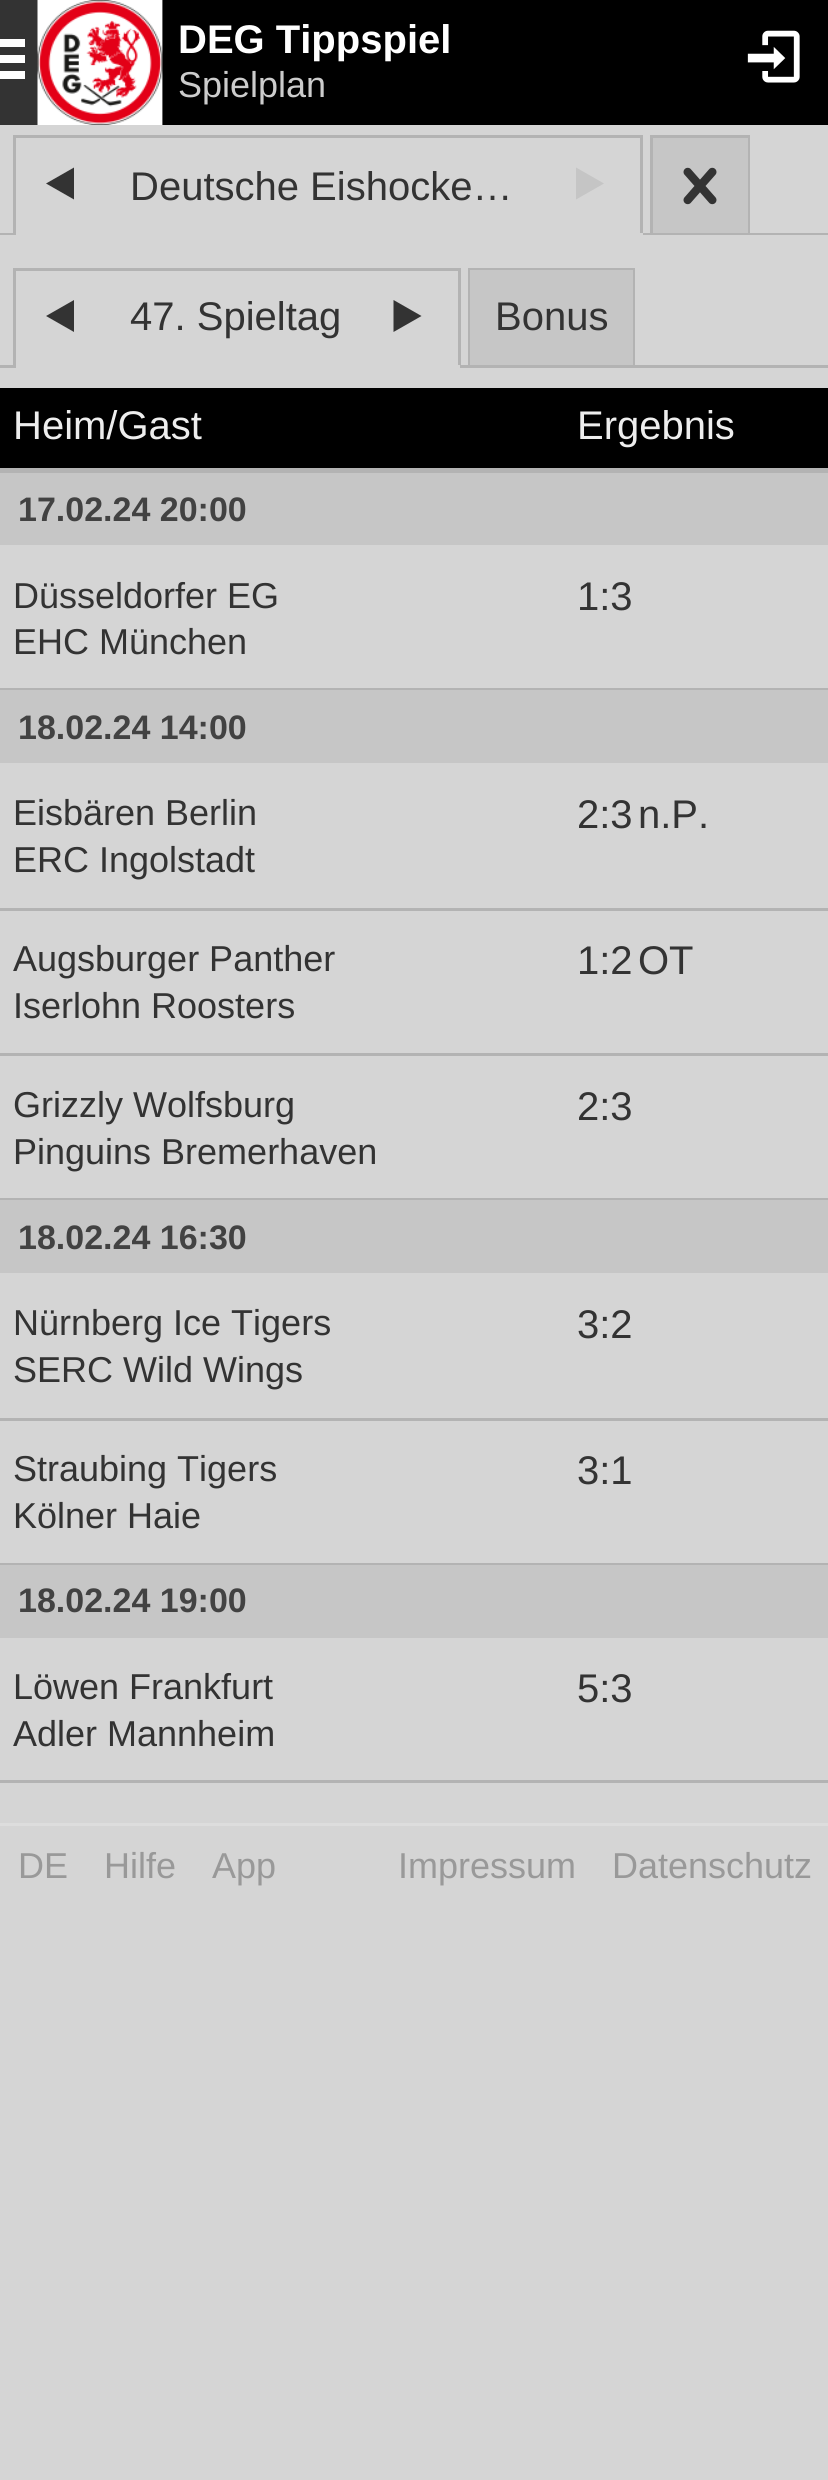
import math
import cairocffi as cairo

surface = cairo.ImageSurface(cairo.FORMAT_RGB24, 828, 2480)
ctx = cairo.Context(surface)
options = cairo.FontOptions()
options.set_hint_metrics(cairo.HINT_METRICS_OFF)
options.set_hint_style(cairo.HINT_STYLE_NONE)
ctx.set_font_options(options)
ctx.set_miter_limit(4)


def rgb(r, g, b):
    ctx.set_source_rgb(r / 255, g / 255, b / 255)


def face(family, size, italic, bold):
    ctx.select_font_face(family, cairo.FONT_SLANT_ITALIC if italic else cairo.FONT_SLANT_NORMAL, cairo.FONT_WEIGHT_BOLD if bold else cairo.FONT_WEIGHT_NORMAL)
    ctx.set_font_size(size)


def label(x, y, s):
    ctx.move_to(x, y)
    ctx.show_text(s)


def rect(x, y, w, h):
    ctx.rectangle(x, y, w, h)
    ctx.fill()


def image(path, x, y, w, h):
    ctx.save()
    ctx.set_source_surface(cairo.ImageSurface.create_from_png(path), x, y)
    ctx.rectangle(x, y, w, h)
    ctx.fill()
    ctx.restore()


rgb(213, 213, 213)
ctx.paint()
rgb(0, 0, 0)
rect(163, 0, 665, 125)
rgb(51, 51, 51)
rect(0, 0, 163, 125)
image('image0.png', 0, 39, 25, 40)
image('image1.png', 37, 0, 126, 125)
face('Liberation Sans', 40, 0, 1)
rgb(255, 255, 255)
label(178, 53, 'DEG Tippspiel')
face('Liberation Sans', 36, 0, 0)
rgb(204, 204, 204)
label(178, 97, 'Spielplan')
image('image2.png', 747, 30, 53, 53)
rgb(179, 179, 179)
rect(0, 233, 828, 2)
rect(13, 135, 630, 3)
rect(640, 135, 3, 100)
rgb(213, 213, 213)
rect(13, 233, 630, 2)
rgb(179, 179, 179)
rect(13, 135, 3, 100)
rgb(51, 51, 51)
ctx.new_path()
ctx.move_to(74, 167.5)
ctx.line_to(74, 199.5)
ctx.line_to(46, 183.5)
ctx.close_path()
ctx.fill()
face('Liberation Sans', 40, 0, 0)
label(130, 200, 'Deutsche Eishocke…')
rgb(197, 197, 197)
ctx.new_path()
ctx.move_to(576, 167.5)
ctx.line_to(576, 199.5)
ctx.line_to(604, 183.5)
ctx.close_path()
ctx.fill()
ctx.rectangle(651.5, 136.5, 97, 97)
rgb(179, 179, 179)
ctx.set_line_width(3)
ctx.stroke()
rgb(198, 198, 198)
rect(653, 138, 95, 95)
image('image3.png', 683, 167, 34, 38)
rgb(179, 179, 179)
rect(0, 365, 828, 3)
rect(13, 268, 447, 3)
rect(458, 268, 3, 100)
rgb(213, 213, 213)
rect(13, 365, 447, 3)
rgb(179, 179, 179)
rect(13, 268, 3, 100)
rgb(51, 51, 51)
ctx.new_path()
ctx.move_to(74, 300)
ctx.line_to(74, 332)
ctx.line_to(46, 316)
ctx.close_path()
ctx.fill()
label(130, 330, '47. Spieltag')
ctx.new_path()
ctx.move_to(393.5, 300)
ctx.line_to(393.5, 332)
ctx.line_to(421.5, 316)
ctx.close_path()
ctx.fill()
ctx.rectangle(469.5, 269.5, 164, 97)
rgb(179, 179, 179)
ctx.stroke()
rgb(198, 198, 198)
rect(470, 270, 163, 95)
rgb(51, 51, 51)
label(495, 330, 'Bonus')
rgb(0, 0, 0)
rect(0, 388, 828, 80)
rgb(179, 179, 179)
rect(0, 468, 828, 5)
rgb(238, 238, 238)
label(13, 439, 'Heim/Gast')
label(577, 439, 'Ergebnis')
rgb(198, 198, 198)
rect(0, 473, 828, 72)
face('Liberation Sans', 34, 0, 1)
rgb(66, 66, 66)
label(18, 521, '17.02.24 20:00')
rgb(179, 179, 179)
rect(0, 688, 828, 2)
face('Liberation Sans', 36, 0, 0)
rgb(51, 51, 51)
label(13, 608, 'Düsseldorfer EG')
label(13, 654, 'EHC München')
face('Liberation Sans', 40, 0, 0)
label(577, 610, '1:3')
rgb(198, 198, 198)
rect(0, 690, 828, 73)
face('Liberation Sans', 34, 0, 1)
rgb(66, 66, 66)
label(18, 739, '18.02.24 14:00')
rgb(179, 179, 179)
rect(0, 908, 828, 3)
face('Liberation Sans', 36, 0, 0)
rgb(51, 51, 51)
label(13, 825, 'Eisbären Berlin')
label(13, 872, 'ERC Ingolstadt')
face('Liberation Sans', 40, 0, 0)
label(577, 828, '2:3')
label(638, 828, 'n.P.')
rgb(179, 179, 179)
rect(0, 1053, 828, 3)
face('Liberation Sans', 36, 0, 0)
rgb(51, 51, 51)
label(13, 971, 'Augsburger Panther')
label(13, 1018, 'Iserlohn Roosters')
face('Liberation Sans', 40, 0, 0)
label(577, 974, '1:2')
label(638, 974, 'OT')
rgb(179, 179, 179)
rect(0, 1198, 828, 2)
face('Liberation Sans', 36, 0, 0)
rgb(51, 51, 51)
label(13, 1117, 'Grizzly Wolfsburg')
label(13, 1164, 'Pinguins Bremerhaven')
face('Liberation Sans', 40, 0, 0)
label(577, 1120, '2:3')
rgb(198, 198, 198)
rect(0, 1200, 828, 73)
face('Liberation Sans', 34, 0, 1)
rgb(66, 66, 66)
label(18, 1249, '18.02.24 16:30')
rgb(179, 179, 179)
rect(0, 1418, 828, 3)
face('Liberation Sans', 36, 0, 0)
rgb(51, 51, 51)
label(13, 1335, 'Nürnberg Ice Tigers')
label(13, 1382, 'SERC Wild Wings')
face('Liberation Sans', 40, 0, 0)
label(577, 1338, '3:2')
rgb(179, 179, 179)
rect(0, 1563, 828, 2)
face('Liberation Sans', 36, 0, 0)
rgb(51, 51, 51)
label(13, 1481, 'Straubing Tigers')
label(13, 1528, 'Kölner Haie')
face('Liberation Sans', 40, 0, 0)
label(577, 1484, '3:1')
rgb(198, 198, 198)
rect(0, 1565, 828, 73)
face('Liberation Sans', 34, 0, 1)
rgb(66, 66, 66)
label(18, 1612, '18.02.24 19:00')
rgb(179, 179, 179)
rect(0, 1780, 828, 3)
face('Liberation Sans', 36, 0, 0)
rgb(51, 51, 51)
label(13, 1699, 'Löwen Frankfurt')
label(13, 1746, 'Adler Mannheim')
face('Liberation Sans', 40, 0, 0)
label(577, 1702, '5:3')
rgb(221, 221, 221)
rect(0, 1823, 828, 3)
face('Liberation Sans', 36, 0, 0)
rgb(153, 153, 153)
label(18, 1878, 'DE')
label(104, 1878, 'Hilfe')
label(212, 1878, 'App')
label(398, 1878, 'Impressum')
label(612, 1878, 'Datenschutz')
surface.write_to_png('render.png')
